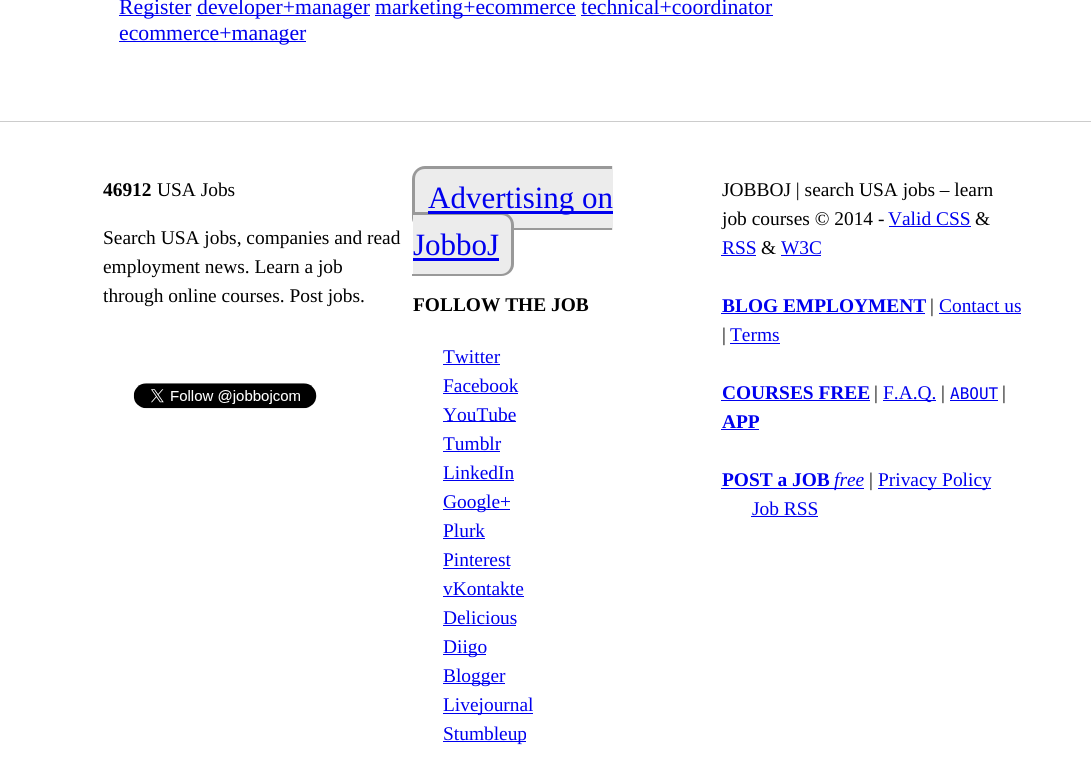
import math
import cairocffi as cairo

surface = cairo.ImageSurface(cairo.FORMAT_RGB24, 1091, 778)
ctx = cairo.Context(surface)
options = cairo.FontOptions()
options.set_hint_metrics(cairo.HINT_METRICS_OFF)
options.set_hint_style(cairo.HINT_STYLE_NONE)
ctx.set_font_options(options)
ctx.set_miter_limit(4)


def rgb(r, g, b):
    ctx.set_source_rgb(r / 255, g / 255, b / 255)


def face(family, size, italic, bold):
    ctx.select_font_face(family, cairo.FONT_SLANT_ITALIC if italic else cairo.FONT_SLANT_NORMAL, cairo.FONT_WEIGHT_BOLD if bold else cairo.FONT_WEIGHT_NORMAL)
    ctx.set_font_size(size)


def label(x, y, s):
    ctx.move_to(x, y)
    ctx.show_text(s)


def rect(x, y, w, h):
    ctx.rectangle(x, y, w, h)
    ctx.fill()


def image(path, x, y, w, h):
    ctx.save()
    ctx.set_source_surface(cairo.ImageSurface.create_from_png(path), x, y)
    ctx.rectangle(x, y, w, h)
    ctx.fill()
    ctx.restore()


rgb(255, 255, 255)
ctx.paint()
rgb(204, 204, 204)
rect(0, 121, 1091, 1)
rgb(0, 0, 238)
rect(119, 15, 72, 1)
face('Liberation Serif', 21.75, 0, 0)
label(119, 14, 'Register')
rect(196, 15, 174, 1)
label(197, 14, 'developer+manager')
rect(375, 15, 201, 1)
label(375, 14, 'marketing+ecommerce technical+coordinator')
rect(581, 15, 192, 1)
rect(119, 41, 187, 1)
label(119, 40, 'ecommerce+manager')
face('Liberation Serif', 19.4, 0, 1)
rgb(0, 0, 0)
label(103, 196, '46912')
face('Liberation Serif', 19.4, 0, 0)
label(157, 196, 'USA Jobs')
label(103, 244, 'Search USA jobs, companies and read')
label(103, 273, 'employment news. Learn a job')
label(103, 302, 'through online courses. Post jobs.')
image('image0.png', 133, 383, 184, 26)
rgb(236, 236, 236)
ctx.new_path()
ctx.move_to(426, 166)
ctx.line_to(613, 166)
ctx.line_to(613, 230)
ctx.line_to(426, 230)
ctx.curve_to(419, 230, 413, 224, 413, 217)
ctx.line_to(413, 179)
ctx.curve_to(413, 172, 419, 166, 426, 166)
ctx.close_path()
ctx.fill()
rgb(153, 153, 153)
ctx.set_fill_rule(cairo.FILL_RULE_EVEN_ODD)
ctx.new_path()
ctx.move_to(425, 166)
ctx.line_to(612, 166)
ctx.line_to(612, 230)
ctx.line_to(425, 230)
ctx.curve_to(418, 230, 412, 224, 412, 218)
ctx.line_to(412, 179)
ctx.curve_to(412, 172, 418, 166, 425, 166)
ctx.close_path()
ctx.move_to(425, 169)
ctx.line_to(612, 169)
ctx.line_to(612, 228)
ctx.line_to(425, 228)
ctx.curve_to(419, 228, 415, 223, 415, 218)
ctx.line_to(415, 179)
ctx.curve_to(415, 173, 419, 169, 425, 169)
ctx.close_path()
ctx.fill()
rgb(236, 236, 236)
ctx.new_path()
ctx.move_to(413, 213)
ctx.line_to(501, 213)
ctx.curve_to(508, 213, 514, 219, 514, 226)
ctx.line_to(514, 263)
ctx.curve_to(514, 270, 508, 276, 501, 276)
ctx.line_to(413, 276)
ctx.close_path()
ctx.fill()
rgb(153, 153, 153)
ctx.new_path()
ctx.move_to(412, 212)
ctx.line_to(501, 212)
ctx.curve_to(508, 212, 514, 218, 514, 225)
ctx.line_to(514, 264)
ctx.curve_to(514, 271, 508, 276, 501, 276)
ctx.line_to(412, 276)
ctx.close_path()
ctx.move_to(412, 215)
ctx.line_to(501, 215)
ctx.curve_to(507, 215, 511, 219, 511, 225)
ctx.line_to(511, 264)
ctx.curve_to(511, 269, 507, 274, 501, 274)
ctx.line_to(412, 274)
ctx.close_path()
ctx.fill()
rgb(0, 0, 238)
rect(428, 211, 185, 3)
face('Liberation Serif', 31, 0, 0)
label(428, 208, 'Advertising on')
label(413, 255, 'JobboJ')
rect(413, 258, 86, 3)
face('Liberation Serif', 19.4, 0, 1)
rgb(0, 0, 0)
label(413, 311, 'FOLLOW THE JOB')
face('Liberation Serif', 19.4, 0, 0)
rgb(0, 0, 238)
label(443, 363, 'Twitter')
rect(443, 364, 57, 1)
label(443, 392, 'Facebook')
rect(443, 393, 75, 1)
rect(443, 421, 73, 1)
label(443, 421, 'YouTube')
label(443, 450, 'Tumblr')
rect(443, 451, 57, 1)
label(443, 479, 'LinkedIn')
rect(443, 480, 71, 1)
rect(443, 509, 67, 1)
label(443, 508, 'Google+')
label(443, 537, 'Plurk')
rect(443, 538, 42, 1)
label(443, 566, 'Pinterest')
rect(443, 568, 67, 1)
label(443, 595, 'vKontakte')
rect(443, 596, 81, 1)
label(443, 624, 'Delicious')
rect(443, 625, 73, 1)
rect(443, 654, 43, 1)
label(443, 653, 'Diigo')
rect(443, 683, 62, 1)
label(443, 682, 'Blogger')
rect(443, 713, 90, 1)
label(443, 711, 'Livejournal')
rect(443, 741, 83, 1)
label(443, 740, 'Stumbleup')
rgb(0, 0, 0)
label(722, 196, 'JOBBOJ | search USA jobs – learn')
label(722, 225, 'job courses © 2014 -')
rgb(0, 0, 238)
label(888, 225, 'Valid CSS')
rect(889, 226, 82, 1)
rgb(0, 0, 0)
label(975, 225, '&')
rgb(0, 0, 238)
label(722, 254, 'RSS')
rect(721, 255, 35, 1)
rgb(0, 0, 0)
label(761, 254, '&')
rgb(0, 0, 238)
label(781, 254, 'W3C')
rect(781, 255, 40, 1)
face('Liberation Serif', 19.4, 0, 1)
label(722, 312, 'BLOG EMPLOYMENT')
rect(721, 313, 204, 1)
face('Liberation Serif', 19.4, 0, 0)
rgb(0, 0, 0)
label(930, 312, '|')
rgb(0, 0, 238)
label(939, 312, 'Contact us')
rect(939, 313, 82, 1)
rgb(0, 0, 0)
label(722, 341, '|')
rgb(0, 0, 238)
label(730, 341, 'Terms')
rect(730, 343, 50, 1)
face('Liberation Serif', 19.4, 0, 1)
label(722, 399, 'COURSES FREE')
rect(721, 400, 149, 1)
face('Liberation Serif', 19.4, 0, 0)
rgb(0, 0, 0)
label(874, 399, '|')
rgb(0, 0, 238)
rect(883, 400, 53, 1)
label(883, 399, 'F.A.Q.')
rgb(0, 0, 0)
label(941, 399, '|')
face('DejaVu Sans Mono', 16, 0, 0)
rgb(0, 0, 238)
label(950, 399, 'ABOUT')
rect(950, 400, 48, 1)
face('Liberation Serif', 19.4, 0, 0)
rgb(0, 0, 0)
label(1002, 399, '|')
face('Liberation Serif', 19.4, 0, 1)
rgb(0, 0, 238)
label(722, 428, 'APP')
rect(721, 429, 38, 1)
label(722, 486, 'POST a JOB')
rect(721, 488, 143, 1)
face('Liberation Serif', 19.4, 1, 0)
label(834, 486, 'free')
face('Liberation Serif', 19.4, 0, 0)
rgb(0, 0, 0)
label(869, 486, '|')
rgb(0, 0, 238)
rect(878, 488, 113, 1)
label(878, 486, 'Privacy Policy')
label(752, 515, 'Job RSS')
rect(751, 516, 67, 1)
surface.write_to_png('render.png')
